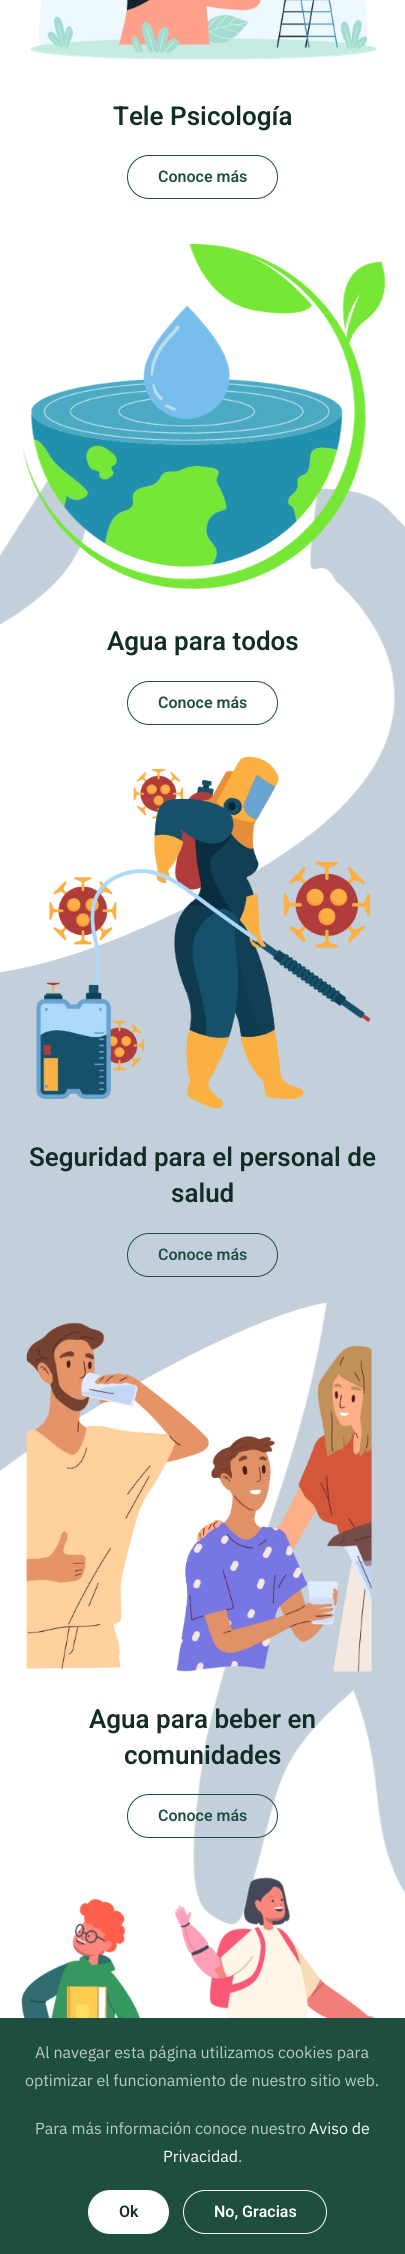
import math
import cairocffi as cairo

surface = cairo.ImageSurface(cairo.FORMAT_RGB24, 405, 2254)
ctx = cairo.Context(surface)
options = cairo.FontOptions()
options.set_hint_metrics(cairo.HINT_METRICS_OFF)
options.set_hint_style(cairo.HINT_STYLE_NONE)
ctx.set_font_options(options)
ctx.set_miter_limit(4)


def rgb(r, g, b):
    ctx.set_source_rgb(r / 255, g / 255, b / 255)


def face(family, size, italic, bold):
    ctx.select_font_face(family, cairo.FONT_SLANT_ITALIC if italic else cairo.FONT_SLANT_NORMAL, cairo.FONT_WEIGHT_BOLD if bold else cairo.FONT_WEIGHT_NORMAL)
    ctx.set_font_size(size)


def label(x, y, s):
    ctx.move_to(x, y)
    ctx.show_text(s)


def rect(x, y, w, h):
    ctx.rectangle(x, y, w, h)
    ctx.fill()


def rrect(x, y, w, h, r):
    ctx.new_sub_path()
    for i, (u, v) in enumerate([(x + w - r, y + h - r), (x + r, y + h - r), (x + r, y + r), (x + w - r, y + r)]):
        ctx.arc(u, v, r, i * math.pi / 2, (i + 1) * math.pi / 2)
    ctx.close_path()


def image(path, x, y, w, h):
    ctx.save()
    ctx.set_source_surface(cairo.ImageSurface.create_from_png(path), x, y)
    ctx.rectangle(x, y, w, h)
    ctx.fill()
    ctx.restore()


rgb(255, 255, 255)
ctx.paint()
image('image0.png', 0, 464, 405, 1460)
image('image1.png', 30, 0, 347, 60)
face('Heebo SemiBold', 26, 0, 0)
rgb(18, 45, 37)
label(113, 125, 'Tele Psicología')
rrect(127.5, 155.5, 150, 43, 21.5)
rgb(29, 78, 63)
ctx.set_line_width(1)
ctx.stroke()
face('Heebo SemiBold', 16, 0, 0)
label(158, 182, 'Conoce más')
image('image2.png', 23, 243, 363, 346)
face('Heebo SemiBold', 26, 0, 0)
rgb(18, 45, 37)
label(107, 650, 'Agua para todos')
rrect(127.5, 681.5, 150, 43, 21.5)
rgb(29, 78, 63)
ctx.stroke()
face('Heebo SemiBold', 16, 0, 0)
label(158, 708, 'Conoce más')
image('image3.png', 36, 756, 335, 353)
face('Heebo SemiBold', 26, 0, 0)
rgb(18, 45, 37)
label(29, 1166, 'Seguridad para el personal de')
label(171, 1202, 'salud')
rrect(127.5, 1233.5, 150, 43, 21.5)
rgb(29, 78, 63)
ctx.stroke()
face('Heebo SemiBold', 16, 0, 0)
label(158, 1260, 'Conoce más')
image('image4.png', 26, 1322, 346, 350)
face('Heebo SemiBold', 26, 0, 0)
rgb(18, 45, 37)
label(89, 1728, 'Agua para beber en')
label(124, 1764, 'comunidades')
rrect(127.5, 1794.5, 150, 43, 21.5)
rgb(29, 78, 63)
ctx.stroke()
face('Heebo SemiBold', 16, 0, 0)
label(158, 1821, 'Conoce más')
image('image5.png', 21, 1877, 354, 141)
rect(0, 2018, 405, 236)
face('IBM Plex Sans', 16, 0, 0)
rgb(187, 202, 197)
label(35, 2058, 'Al navegar esta página utilizamos cookies para')
label(25, 2086, 'optimizar el funcionamiento de nuestro sitio web.')
label(35, 2134, 'Para más información conoce nuestro')
rgb(255, 255, 255)
label(309, 2134, 'Aviso de')
label(163, 2162, 'Privacidad')
rgb(187, 202, 197)
label(238, 2162, '.')
rgb(255, 255, 255)
rrect(88, 2190, 81, 44, 22)
ctx.fill()
face('Heebo SemiBold', 16, 0, 0)
rgb(18, 45, 37)
label(119, 2217, 'Ok')
rrect(183.5, 2190.5, 143, 43, 21.5)
rgb(255, 255, 255)
ctx.stroke()
label(214, 2217, 'No, Gracias')
surface.write_to_png('render.png')
